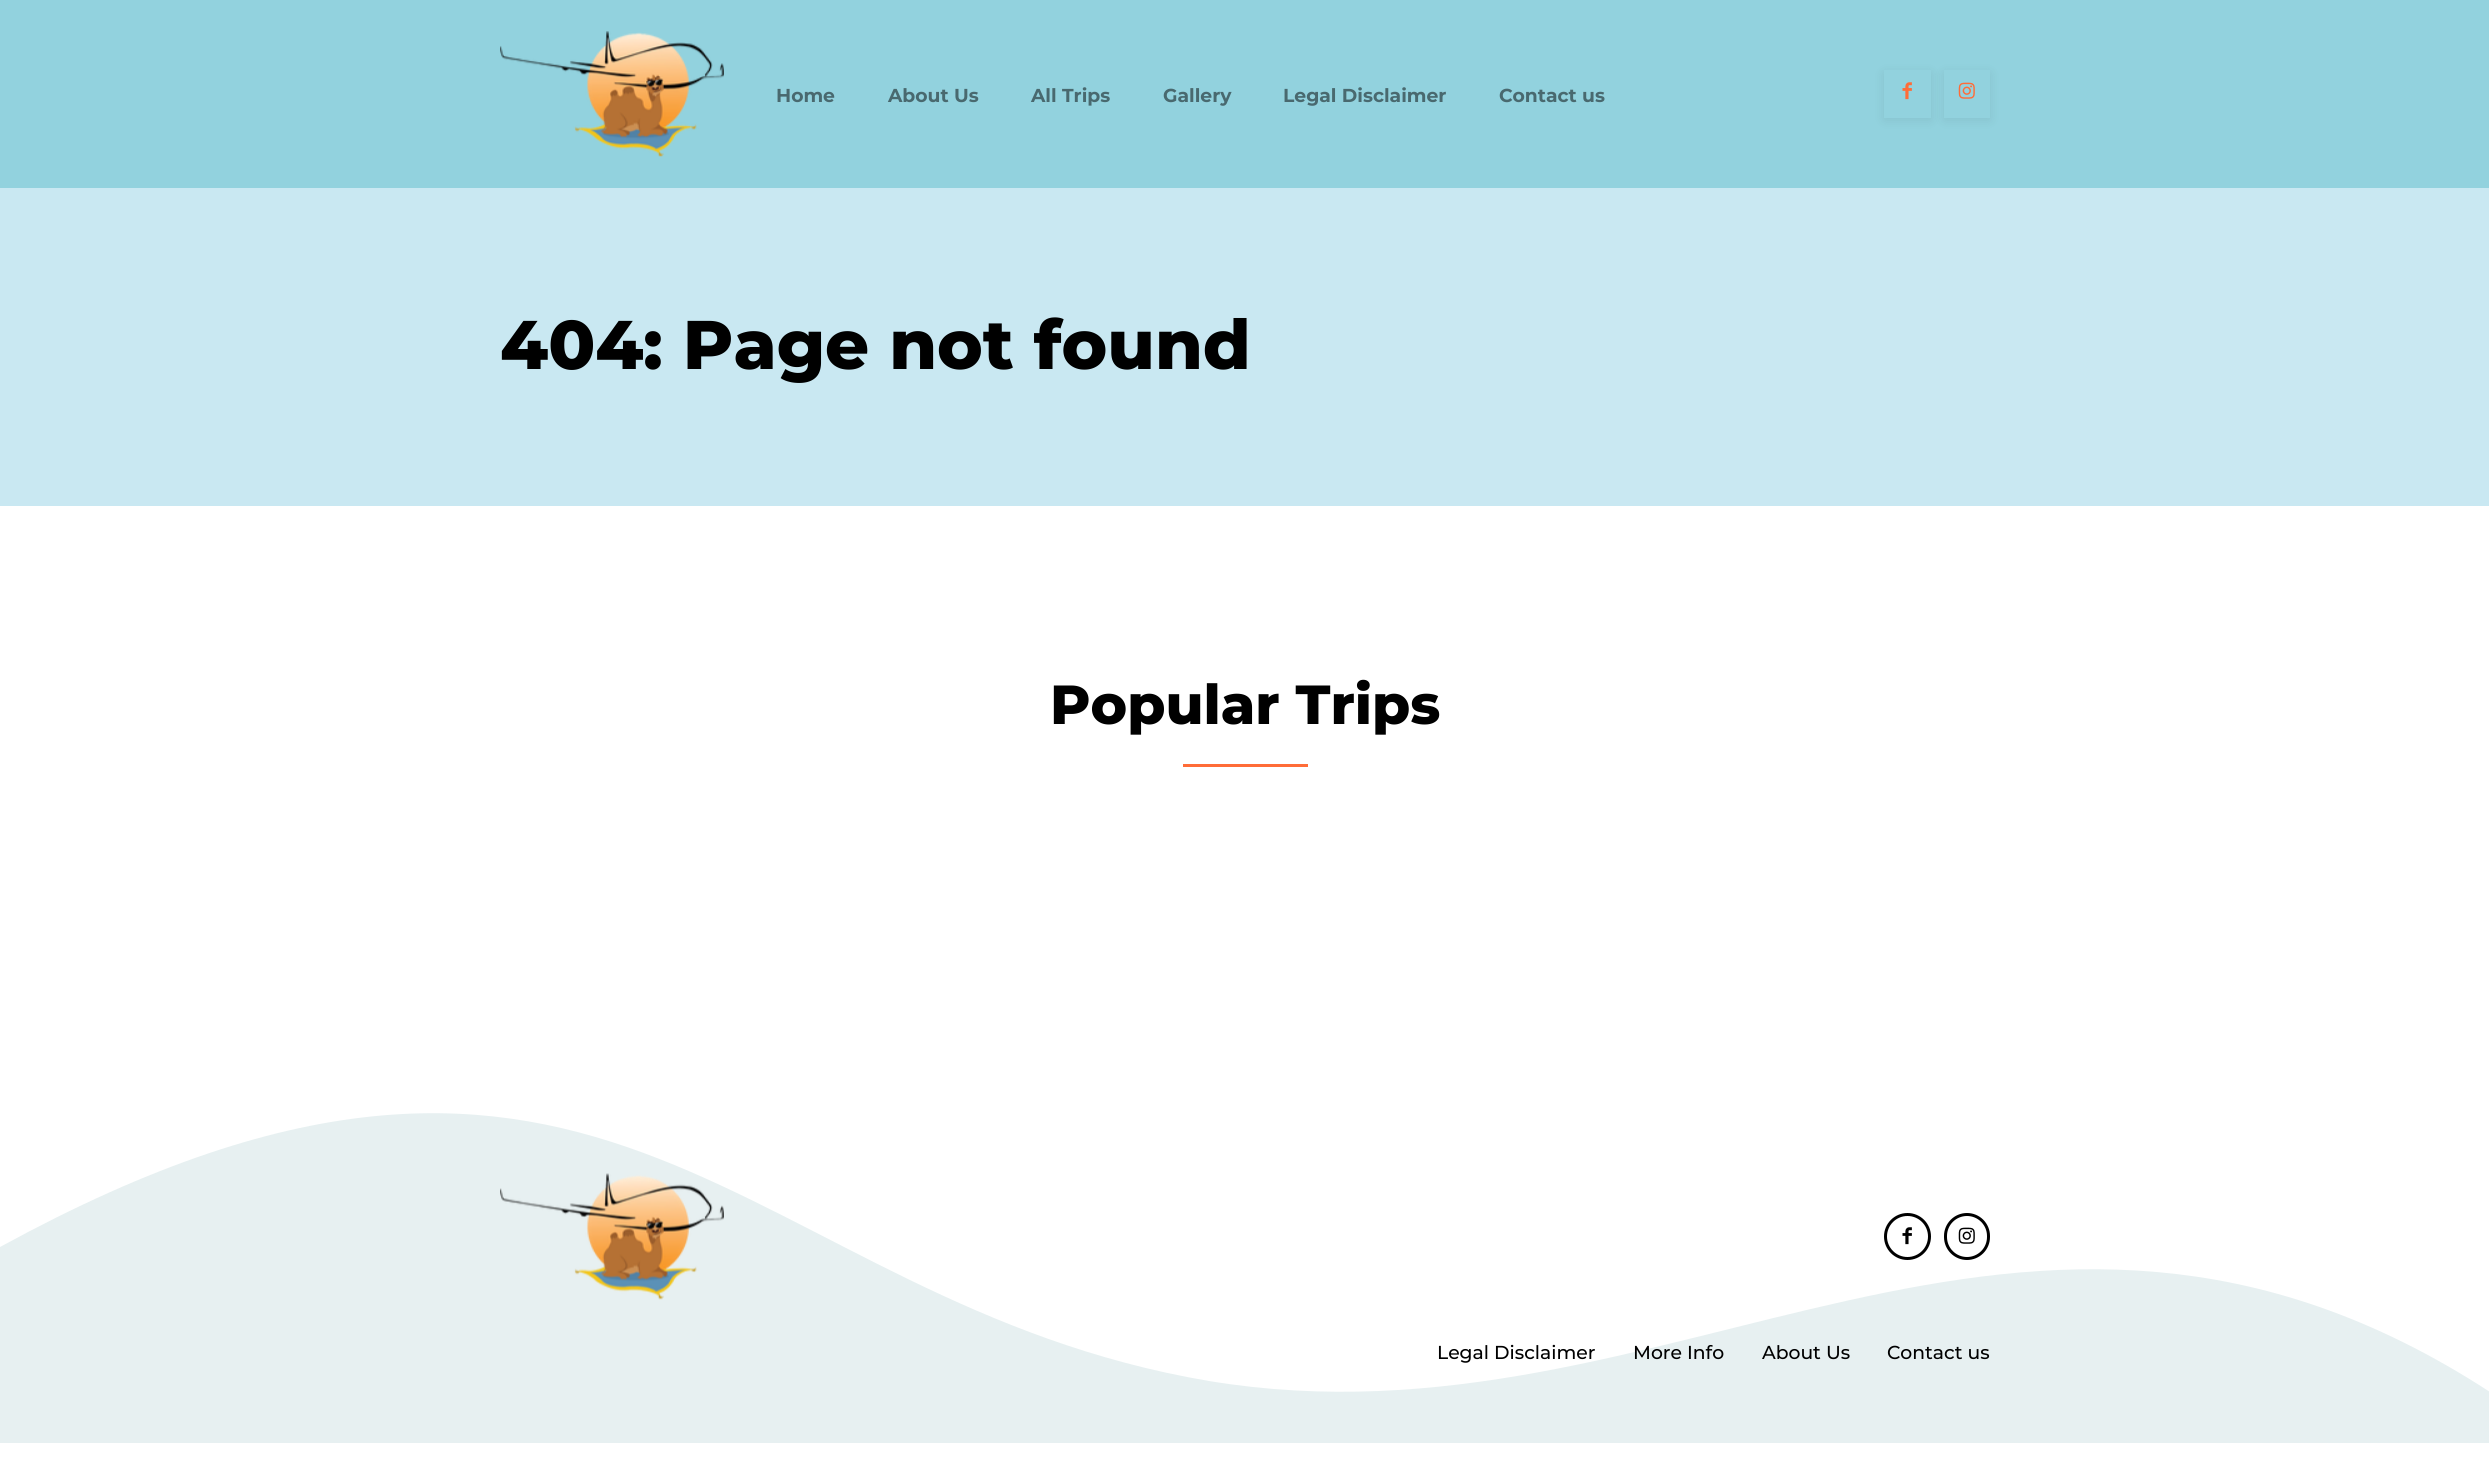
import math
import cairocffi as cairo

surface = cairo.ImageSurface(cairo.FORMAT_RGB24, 2489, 1478)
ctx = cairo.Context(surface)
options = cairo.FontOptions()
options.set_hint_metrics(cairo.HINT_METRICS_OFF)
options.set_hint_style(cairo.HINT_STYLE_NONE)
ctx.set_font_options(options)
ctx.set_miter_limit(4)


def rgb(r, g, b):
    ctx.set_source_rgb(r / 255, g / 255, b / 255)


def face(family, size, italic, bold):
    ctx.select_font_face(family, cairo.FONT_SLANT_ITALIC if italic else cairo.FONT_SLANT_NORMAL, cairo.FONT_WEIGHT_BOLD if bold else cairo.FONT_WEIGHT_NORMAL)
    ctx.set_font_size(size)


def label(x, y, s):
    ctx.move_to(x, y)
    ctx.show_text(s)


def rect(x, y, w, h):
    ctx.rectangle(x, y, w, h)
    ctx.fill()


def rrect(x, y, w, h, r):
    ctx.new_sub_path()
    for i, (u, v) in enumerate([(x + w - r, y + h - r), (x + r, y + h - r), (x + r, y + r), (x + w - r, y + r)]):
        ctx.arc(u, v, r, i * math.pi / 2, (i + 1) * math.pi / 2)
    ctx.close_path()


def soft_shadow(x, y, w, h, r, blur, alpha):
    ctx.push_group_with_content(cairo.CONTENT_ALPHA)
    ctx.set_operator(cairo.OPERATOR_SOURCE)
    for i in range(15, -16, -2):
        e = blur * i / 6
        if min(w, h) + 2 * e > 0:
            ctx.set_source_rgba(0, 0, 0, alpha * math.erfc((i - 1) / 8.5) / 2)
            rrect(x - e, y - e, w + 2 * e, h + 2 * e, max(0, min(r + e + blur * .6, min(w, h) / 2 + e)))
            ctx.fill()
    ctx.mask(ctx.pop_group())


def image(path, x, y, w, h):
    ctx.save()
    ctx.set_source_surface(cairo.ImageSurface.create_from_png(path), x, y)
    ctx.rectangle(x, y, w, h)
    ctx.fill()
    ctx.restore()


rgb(255, 255, 255)
ctx.paint()
rgb(146, 210, 222)
rect(0, 0, 2489, 188)
image('image0.png', 500, 31, 224, 126)
face('Montserrat', 18.75, 0, 1)
rgb(73, 105, 111)
label(776, 102, 'Home')
label(888, 102, 'About Us')
label(1031, 102, 'All Trips')
label(1163, 102, 'Gallery')
label(1283, 102, 'Legal Disclaimer')
label(1499, 102, 'Contact us')
ctx.save()
ctx.set_fill_rule(cairo.FILL_RULE_EVEN_ODD)
ctx.new_path()
ctx.move_to(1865, 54)
ctx.line_to(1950, 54)
ctx.line_to(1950, 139)
ctx.line_to(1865, 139)
ctx.close_path()
ctx.move_to(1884, 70)
ctx.line_to(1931, 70)
ctx.line_to(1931, 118)
ctx.line_to(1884, 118)
ctx.close_path()
ctx.clip()
rgb(0, 0, 0)
soft_shadow(1884, 73, 47, 47, 0, 6, 0.08)
ctx.restore()
image('image1.png', 1902, 82, 10, 18)
ctx.save()
ctx.set_fill_rule(cairo.FILL_RULE_EVEN_ODD)
ctx.new_path()
ctx.move_to(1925, 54)
ctx.line_to(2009, 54)
ctx.line_to(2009, 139)
ctx.line_to(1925, 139)
ctx.close_path()
ctx.move_to(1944, 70)
ctx.line_to(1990, 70)
ctx.line_to(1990, 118)
ctx.line_to(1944, 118)
ctx.close_path()
ctx.clip()
rgb(0, 0, 0)
soft_shadow(1944, 73, 46, 47, 0, 6, 0.08)
ctx.restore()
image('image2.png', 1958, 82, 17, 17)
rgb(201, 232, 242)
rect(0, 188, 2489, 318)
face('Montserrat ExtraBold', 68.75, 0, 0)
rgb(0, 0, 0)
label(500, 369, '404: Page not found')
face('Montserrat ExtraBold', 55, 0, 0)
label(1050, 724, 'Popular Trips')
rgb(255, 108, 56)
rect(1183, 764, 125, 3)
rgb(231, 240, 241)
rect(0, 1113, 2489, 330)
ctx.save()
ctx.rectangle(0, 1099, 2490, 344)
ctx.clip()
rgb(255, 255, 255)
ctx.new_path()
ctx.move_to(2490, 723)
ctx.line_to(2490, 1392)
ctx.curve_to(2020, 1086, 1673, 1458, 1209, 1381)
ctx.curve_to(742, 1302, 612, 912, 0, 1247)
ctx.line_to(0, 723)
ctx.close_path()
ctx.fill()
ctx.restore()
image('image3.png', 500, 1173, 224, 127)
ctx.arc(1907.5, 1236.5, 22, 0, 2 * math.pi)
rgb(0, 0, 0)
ctx.set_line_width(3)
ctx.stroke()
image('image4.png', 1902, 1227, 10, 18)
rrect(1945.5, 1214.5, 43, 44, 21.5)
ctx.stroke()
image('image5.png', 1958, 1227, 17, 17)
face('Montserrat Medium', 18.75, 0, 0)
label(1437, 1359, 'Legal Disclaimer')
label(1633, 1359, 'More Info')
label(1762, 1359, 'About Us')
label(1887, 1359, 'Contact us')
surface.write_to_png('render.png')
